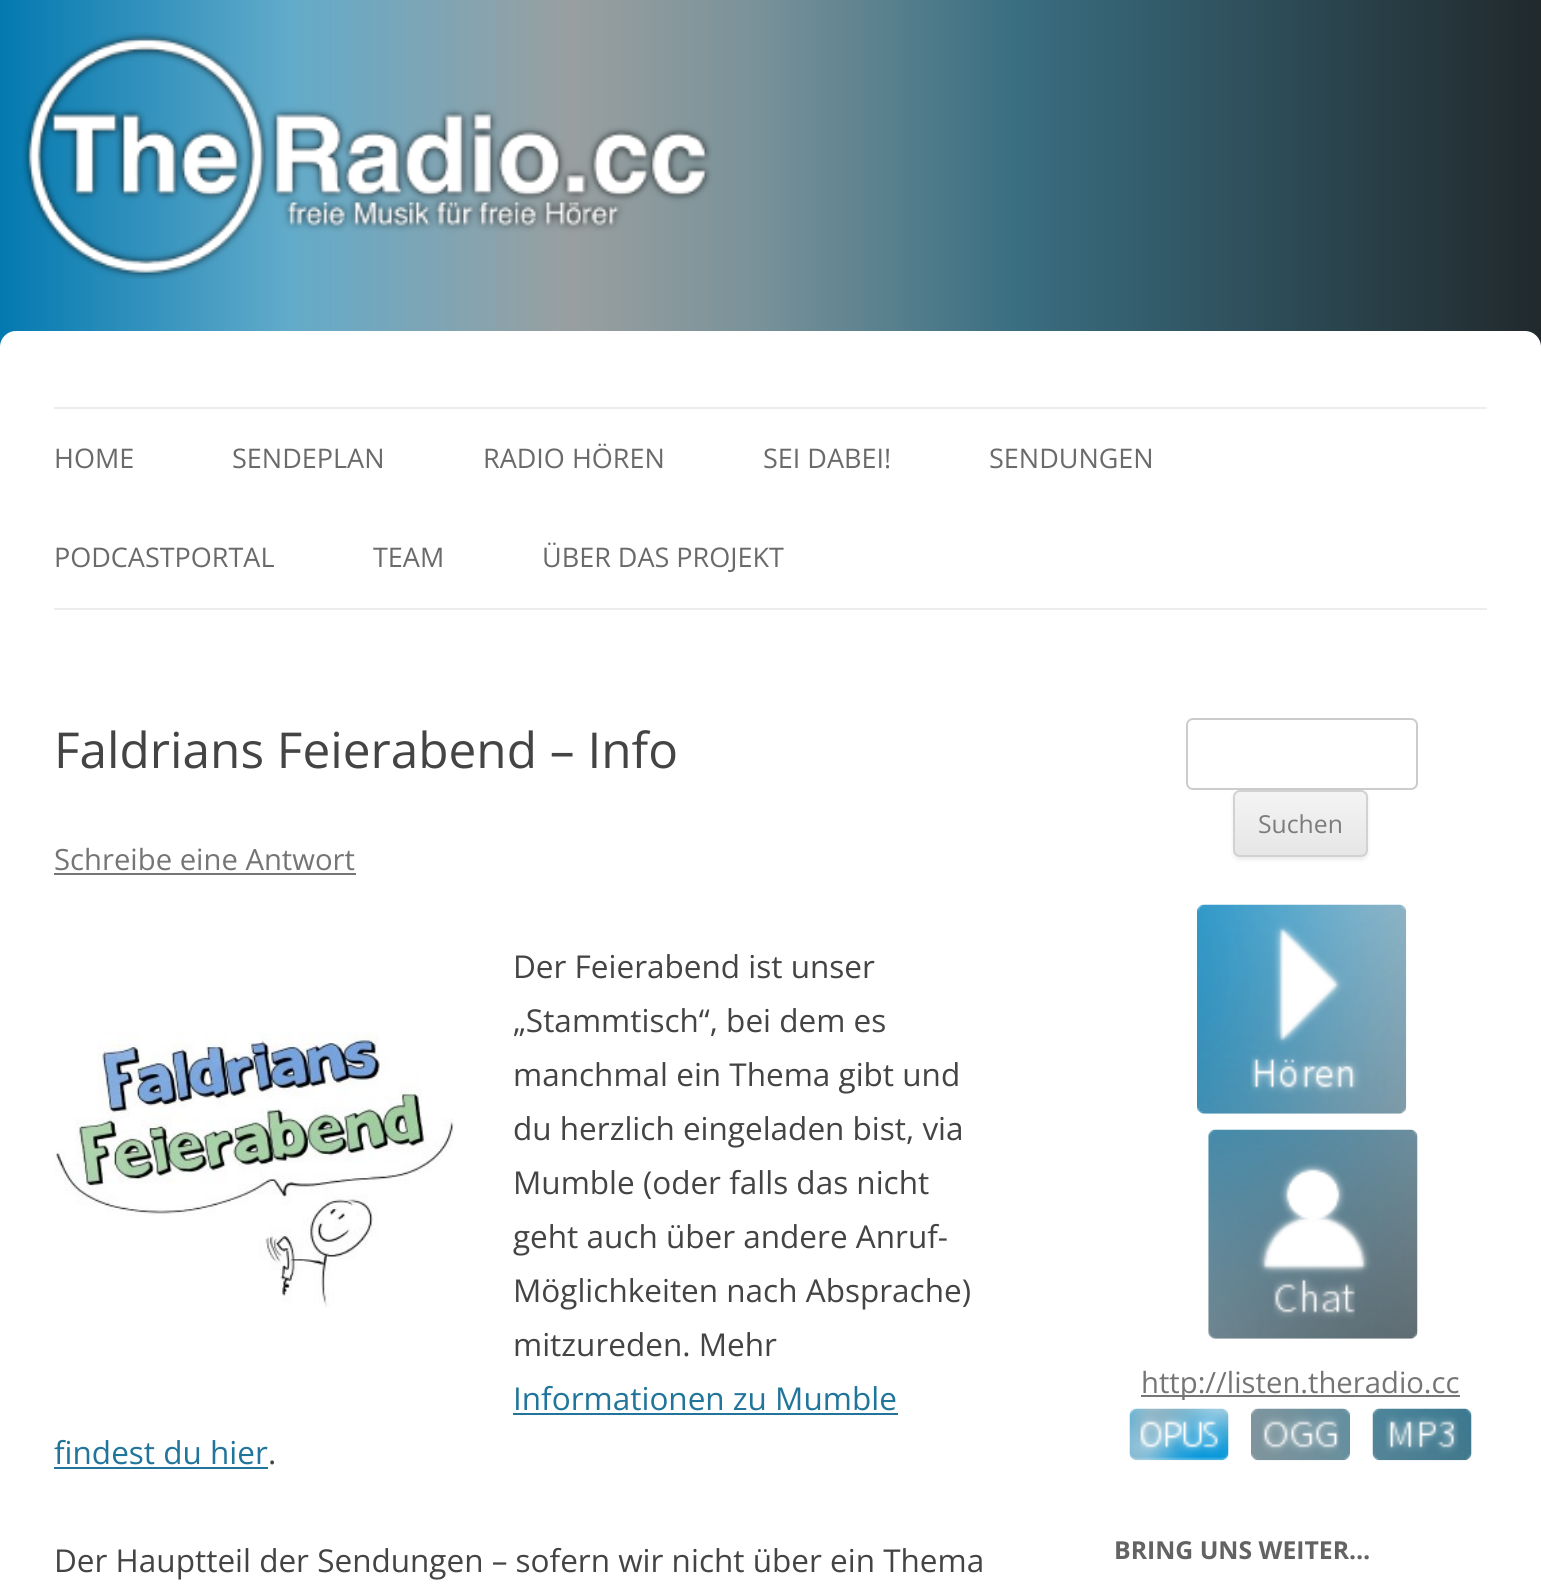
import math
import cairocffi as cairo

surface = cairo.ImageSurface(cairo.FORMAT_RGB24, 1541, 1588)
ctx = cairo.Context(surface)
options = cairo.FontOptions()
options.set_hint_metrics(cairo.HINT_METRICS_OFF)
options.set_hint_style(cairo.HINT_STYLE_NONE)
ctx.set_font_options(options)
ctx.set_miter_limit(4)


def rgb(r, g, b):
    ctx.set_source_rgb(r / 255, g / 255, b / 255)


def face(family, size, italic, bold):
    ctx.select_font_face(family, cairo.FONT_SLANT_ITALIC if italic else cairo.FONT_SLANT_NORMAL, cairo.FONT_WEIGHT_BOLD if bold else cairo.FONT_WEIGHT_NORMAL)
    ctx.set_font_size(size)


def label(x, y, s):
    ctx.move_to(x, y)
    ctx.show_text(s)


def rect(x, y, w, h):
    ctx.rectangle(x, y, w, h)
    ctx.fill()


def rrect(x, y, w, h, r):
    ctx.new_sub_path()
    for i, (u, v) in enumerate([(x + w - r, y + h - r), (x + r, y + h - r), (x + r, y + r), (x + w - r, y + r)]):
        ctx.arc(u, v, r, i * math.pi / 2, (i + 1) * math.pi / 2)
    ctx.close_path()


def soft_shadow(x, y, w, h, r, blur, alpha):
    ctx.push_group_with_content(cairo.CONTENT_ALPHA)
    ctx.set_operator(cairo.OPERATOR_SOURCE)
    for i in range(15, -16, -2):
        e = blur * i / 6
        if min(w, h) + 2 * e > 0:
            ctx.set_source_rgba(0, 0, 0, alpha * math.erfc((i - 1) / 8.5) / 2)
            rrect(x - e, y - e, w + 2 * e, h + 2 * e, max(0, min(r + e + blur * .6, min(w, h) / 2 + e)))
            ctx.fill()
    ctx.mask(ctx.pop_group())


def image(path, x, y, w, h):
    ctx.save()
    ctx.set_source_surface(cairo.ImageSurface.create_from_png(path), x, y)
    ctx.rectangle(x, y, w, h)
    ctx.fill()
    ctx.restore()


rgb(255, 255, 255)
ctx.paint()
gradient = cairo.LinearGradient(0, 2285, 1541, 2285)
gradient.add_color_stop_rgba(0, 0.012, 0.475, 0.69, 1)
gradient.add_color_stop_rgba(0.19, 0.388, 0.671, 0.792, 1)
gradient.add_color_stop_rgba(0.37, 0.6, 0.624, 0.627, 1)
gradient.add_color_stop_rgba(0.49, 0.475, 0.573, 0.604, 1)
gradient.add_color_stop_rgba(0.66, 0.224, 0.431, 0.506, 1)
gradient.add_color_stop_rgba(1, 0.129, 0.161, 0.173, 1)
ctx.set_source(gradient)
rect(0, 0, 1541, 347)
image('image0.png', 22, 32, 690, 247)
rgb(255, 255, 255)
rrect(0, 331, 1541, 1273, 16)
ctx.fill()
rgb(237, 237, 237)
rect(54, 407, 1433, 2)
rect(54, 608, 1433, 2)
face('Open Sans', 27, 0, 0)
rgb(106, 106, 106)
label(54, 468, 'HOME')
label(232, 468, 'SENDEPLAN')
label(483, 468, 'RADIO HÖREN')
label(763, 468, 'SEI DABEI!')
label(989, 468, 'SENDUNGEN')
label(54, 567, 'PODCASTPORTAL')
label(373, 567, 'TEAM')
label(542, 567, 'ÜBER DAS PROJEKT')
face('Open Sans', 49.5, 0, 0)
rgb(68, 68, 68)
label(54, 768, 'Faldrians Feierabend – Info')
face('Open Sans', 29.25, 0, 0)
rgb(117, 117, 117)
label(54, 870, 'Schreibe eine Antwort')
rect(54, 873, 302, 2)
face('Open Sans', 31.5, 0, 0)
rgb(68, 68, 68)
label(513, 978, 'Der Feierabend ist unser')
label(513, 1032, '„Stammtisch“, bei dem es')
image('image1.png', 54, 1032, 400, 276)
label(513, 1086, 'manchmal ein Thema gibt und')
label(513, 1140, 'du herzlich eingeladen bist, via')
label(513, 1194, 'Mumble (oder falls das nicht')
label(513, 1248, 'geht auch über andere Anruf-')
label(513, 1302, 'Möglichkeiten nach Absprache)')
label(513, 1356, 'mitzureden. Mehr')
rgb(33, 117, 155)
label(513, 1410, 'Informationen zu Mumble')
rect(513, 1413, 385, 2)
label(54, 1464, 'findest du hier')
rect(54, 1467, 214, 2)
rgb(68, 68, 68)
label(268, 1464, '.')
label(54, 1572, 'Der Hauptteil der Sendungen – sofern wir nicht über ein Thema')
rrect(1187, 719, 230, 70, 6)
rgb(204, 204, 204)
ctx.stroke()
rgb(64, 64, 64)
soft_shadow(1233, 792, 135, 68, 7, 2, 0.1)
ctx.save()
rrect(1233, 790, 135, 67, 7)
ctx.clip()
gradient = cairo.LinearGradient(1301, 792, 1301, 855)
gradient.add_color_stop_rgba(0, 0.957, 0.957, 0.957, 1)
gradient.add_color_stop_rgba(1, 0.902, 0.902, 0.902, 1)
ctx.set_source(gradient)
rect(1233, 792, 135, 63)
ctx.restore()
rrect(1234, 791, 133, 65, 6)
rgb(210, 210, 210)
ctx.stroke()
face('Open Sans', 24.75, 0, 0)
rgb(124, 124, 124)
label(1258, 833, 'Suchen')
image('image2.png', 1197, 904, 210, 210)
image('image3.png', 1208, 1129, 210, 210)
rgb(117, 117, 117)
rect(1141, 1395, 319, 2)
face('Open Sans', 29.25, 0, 0)
label(1141, 1393, 'http://listen.theradio.cc')
image('image4.png', 1129, 1408, 100, 53)
image('image5.png', 1251, 1408, 99, 53)
image('image6.png', 1372, 1408, 100, 53)
face('Open Sans', 24.75, 0, 1)
rgb(99, 99, 99)
label(1114, 1559, 'BRING UNS WEITER…')
surface.write_to_png('render.png')
